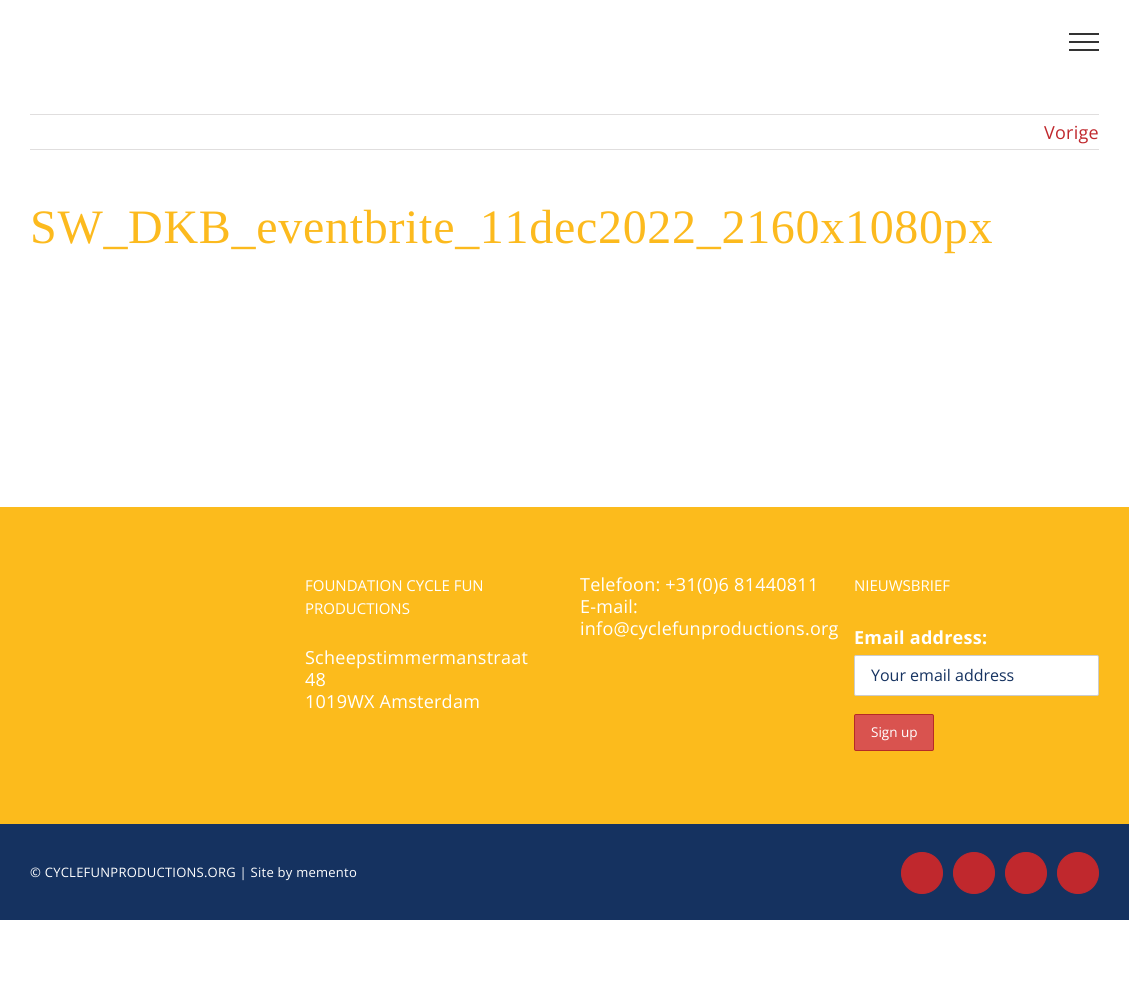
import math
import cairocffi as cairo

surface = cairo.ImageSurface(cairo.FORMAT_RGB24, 1129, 986)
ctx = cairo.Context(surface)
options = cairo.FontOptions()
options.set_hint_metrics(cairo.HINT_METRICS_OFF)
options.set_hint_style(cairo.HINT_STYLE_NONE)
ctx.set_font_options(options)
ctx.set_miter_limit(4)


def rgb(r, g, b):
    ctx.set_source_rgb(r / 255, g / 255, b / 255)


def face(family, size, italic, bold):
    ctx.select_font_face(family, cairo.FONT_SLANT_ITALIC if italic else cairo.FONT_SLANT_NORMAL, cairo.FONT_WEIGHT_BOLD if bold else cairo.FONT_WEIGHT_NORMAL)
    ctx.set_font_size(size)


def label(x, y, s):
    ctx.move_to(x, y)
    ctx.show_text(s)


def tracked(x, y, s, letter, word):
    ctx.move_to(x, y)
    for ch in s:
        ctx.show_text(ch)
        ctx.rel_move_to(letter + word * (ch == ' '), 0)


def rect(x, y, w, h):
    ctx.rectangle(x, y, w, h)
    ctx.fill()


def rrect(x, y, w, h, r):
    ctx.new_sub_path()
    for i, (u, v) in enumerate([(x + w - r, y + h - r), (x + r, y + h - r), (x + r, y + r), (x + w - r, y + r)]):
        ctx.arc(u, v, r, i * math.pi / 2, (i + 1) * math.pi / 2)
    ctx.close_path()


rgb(255, 255, 255)
ctx.paint()
rgb(51, 51, 51)
rect(1069, 33, 30, 2)
rect(1069, 41, 30, 2)
rect(1069, 49, 30, 2)
rgb(224, 222, 222)
rect(30, 114, 1069, 1)
rect(30, 149, 1069, 1)
face('Open Sans', 18, 0, 0)
rgb(192, 40, 45)
tracked(1044, 139, 'Vorige', 0.25, 0)
face('Liberation Serif', 48, 0, 0)
rgb(252, 186, 30)
tracked(30, 243, 'SW_DKB_eventbrite_11dec2022_2160x1080px', 0.7, 0)
rgb(252, 187, 28)
rect(0, 507, 1129, 317)
face('Open Sans', 15, 0, 0)
rgb(255, 255, 255)
label(305, 591, 'FOUNDATION CYCLE FUN')
label(305, 614, 'PRODUCTIONS')
face('Open Sans', 18, 0, 0)
tracked(305, 664, 'Scheepstimmermanstraat', 0.25, 0)
tracked(305, 686, '48', 0.25, 0)
tracked(305, 708, '1019WX Amsterdam', 0.25, 0)
tracked(580, 591, 'Telefoon: +31(0)6 81440811', 0.25, 0)
tracked(580, 613, 'E-mail:', 0.25, 0)
tracked(580, 635, 'info@cyclefunproductions.org', 0.25, 0)
face('Open Sans', 15, 0, 0)
label(854, 591, 'NIEUWSBRIEF')
face('Open Sans', 18, 0, 1)
tracked(854, 644, 'Email address:', 0.25, 0)
rrect(854.5, 655.5, 244, 40, 1.5)
ctx.fill_preserve()
rgb(204, 204, 204)
ctx.set_line_width(1)
ctx.stroke()
face('Open Sans', 16, 0, 0)
rgb(21, 50, 96)
label(871, 681, 'Your email address')
rgb(217, 83, 79)
rrect(854.5, 714.5, 79, 36, 1.5)
ctx.fill_preserve()
rgb(181, 43, 39)
ctx.stroke()
face('Open Sans', 13.5, 0, 0)
rgb(255, 255, 255)
label(871, 737, 'Sign up')
rgb(21, 50, 96)
rect(0, 824, 1129, 96)
face('Open Sans', 13, 0, 0)
rgb(255, 255, 255)
tracked(30, 877, '© CYCLEFUNPRODUCTIONS.ORG | Site by memento', 0.25, 0)
rgb(192, 40, 45)
ctx.new_path()
ctx.arc(922, 873, 20.5, 0, 2 * math.pi)
ctx.fill_preserve()
ctx.stroke()
ctx.arc(974, 873, 20.5, 0, 2 * math.pi)
ctx.fill_preserve()
ctx.stroke()
ctx.arc(1026, 873, 20.5, 0, 2 * math.pi)
ctx.fill_preserve()
ctx.stroke()
ctx.arc(1078, 873, 20.5, 0, 2 * math.pi)
ctx.fill_preserve()
ctx.stroke()
surface.write_to_png('render.png')
